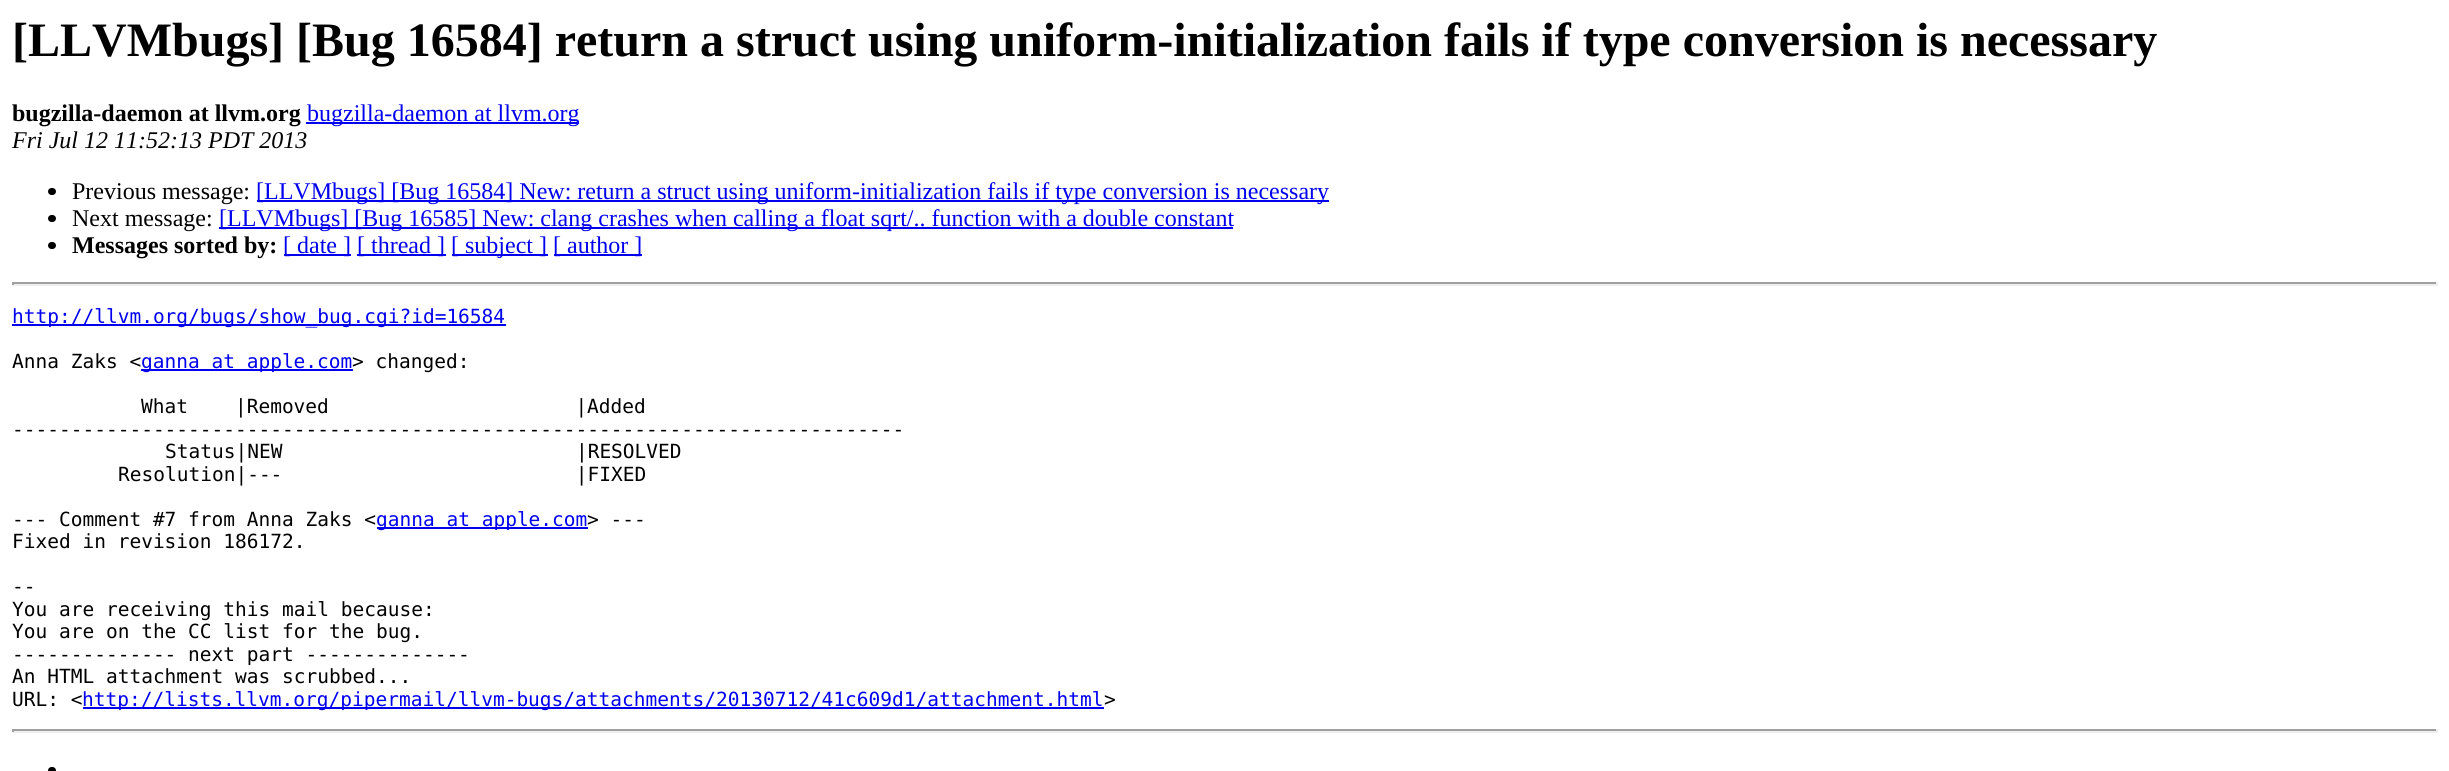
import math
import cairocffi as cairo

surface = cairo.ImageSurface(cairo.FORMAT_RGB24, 2449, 771)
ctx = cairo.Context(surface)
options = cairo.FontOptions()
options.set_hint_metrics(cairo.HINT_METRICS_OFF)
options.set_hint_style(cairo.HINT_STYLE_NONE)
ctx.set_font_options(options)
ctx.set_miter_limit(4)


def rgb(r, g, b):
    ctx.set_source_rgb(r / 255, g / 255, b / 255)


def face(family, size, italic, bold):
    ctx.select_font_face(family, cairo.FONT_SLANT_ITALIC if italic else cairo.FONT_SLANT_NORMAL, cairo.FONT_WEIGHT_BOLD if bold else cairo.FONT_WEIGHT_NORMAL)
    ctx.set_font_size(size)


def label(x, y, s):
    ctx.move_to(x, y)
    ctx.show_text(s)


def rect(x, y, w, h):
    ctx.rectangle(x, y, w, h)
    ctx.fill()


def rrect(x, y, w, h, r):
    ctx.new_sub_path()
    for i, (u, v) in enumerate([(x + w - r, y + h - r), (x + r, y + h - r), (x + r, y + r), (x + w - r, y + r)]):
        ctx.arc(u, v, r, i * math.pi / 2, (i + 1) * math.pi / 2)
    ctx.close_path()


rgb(255, 255, 255)
ctx.paint()
face('Liberation Serif', 48, 0, 1)
rgb(0, 0, 0)
label(12, 56, '[LLVMbugs] [Bug 16584] return a struct using uniform-initialization fails if type conversion is necessary')
face('Liberation Serif', 24, 0, 1)
label(12, 121, 'bugzilla-daemon at llvm.org')
rgb(0, 0, 238)
rect(306, 122, 273, 2)
face('Liberation Serif', 24, 0, 0)
label(307, 121, 'bugzilla-daemon at llvm.org')
face('Liberation Serif', 24, 1, 0)
rgb(0, 0, 0)
label(12, 148, 'Fri Jul 12 11:52:13 PDT 2013')
rrect(48, 188, 8, 7, 3.5)
ctx.fill()
face('Liberation Serif', 24, 0, 0)
label(72, 199, 'Previous message:')
rgb(0, 0, 238)
rect(257, 200, 1072, 2)
label(256, 199, '[LLVMbugs] [Bug 16584] New: return a struct using uniform-initialization fails if type conversion is necessary')
rgb(0, 0, 0)
rrect(48, 215, 8, 7, 3.5)
ctx.fill()
label(72, 226, 'Next message:')
rgb(0, 0, 238)
rect(219, 227, 1014, 2)
label(219, 226, '[LLVMbugs] [Bug 16585] New: clang crashes when calling a float sqrt/.. function with a double constant')
rgb(0, 0, 0)
rrect(48, 242, 8, 7, 3.5)
ctx.fill()
face('Liberation Serif', 24, 0, 1)
label(72, 253, 'Messages sorted by:')
rgb(0, 0, 238)
rect(284, 254, 67, 2)
face('Liberation Serif', 24, 0, 0)
label(283, 253, '[ date ]')
rect(357, 254, 89, 2)
label(357, 253, '[ thread ]')
rect(452, 254, 96, 2)
label(451, 253, '[ subject ]')
rect(554, 254, 88, 2)
label(553, 253, '[ author ]')
rgb(159, 159, 159)
rect(12, 282, 2426, 2)
rgb(238, 238, 238)
rect(2436, 282, 2, 3)
rect(12, 284, 2426, 2)
rgb(159, 159, 159)
rect(12, 282, 2, 3)
rgb(0, 0, 238)
rect(12, 324, 494, 2)
face('DejaVu Sans Mono', 19.5, 0, 0)
label(12, 323, 'http://llvm.org/bugs/show_bug.cgi?id=16584')
rgb(0, 0, 0)
label(12, 368, 'Anna Zaks <')
rgb(0, 0, 238)
rect(141, 369, 212, 2)
label(141, 368, 'ganna at apple.com')
rgb(0, 0, 0)
label(352, 368, '> changed:')
label(141, 413, 'What    |Removed                     |Added')
label(12, 436, '----------------------------------------------------------------------------')
label(165, 458, 'Status|NEW                         |RESOLVED')
label(118, 481, 'Resolution|---                         |FIXED')
label(12, 526, '--- Comment #7 from Anna Zaks <')
rgb(0, 0, 238)
rect(377, 527, 211, 2)
label(376, 526, 'ganna at apple.com')
rgb(0, 0, 0)
label(587, 526, '> ---')
label(12, 548, 'Fixed in revision 186172.')
label(12, 593, '--')
label(12, 616, 'You are receiving this mail because:')
label(12, 638, 'You are on the CC list for the bug.')
label(12, 661, '-------------- next part --------------')
label(12, 683, 'An HTML attachment was scrubbed...')
label(12, 706, 'URL: <')
rgb(0, 0, 238)
rect(83, 707, 1021, 2)
label(82, 706, 'http://lists.llvm.org/pipermail/llvm-bugs/attachments/20130712/41c609d1/attachment.html')
rgb(0, 0, 0)
label(1104, 706, '>')
rgb(159, 159, 159)
rect(12, 729, 2426, 2)
rgb(238, 238, 238)
rect(2436, 729, 2, 3)
rect(12, 731, 2426, 2)
rgb(159, 159, 159)
rect(12, 729, 2, 3)
rgb(0, 0, 0)
rrect(48, 767, 8, 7, 3.5)
ctx.fill()
surface.write_to_png('render.png')
